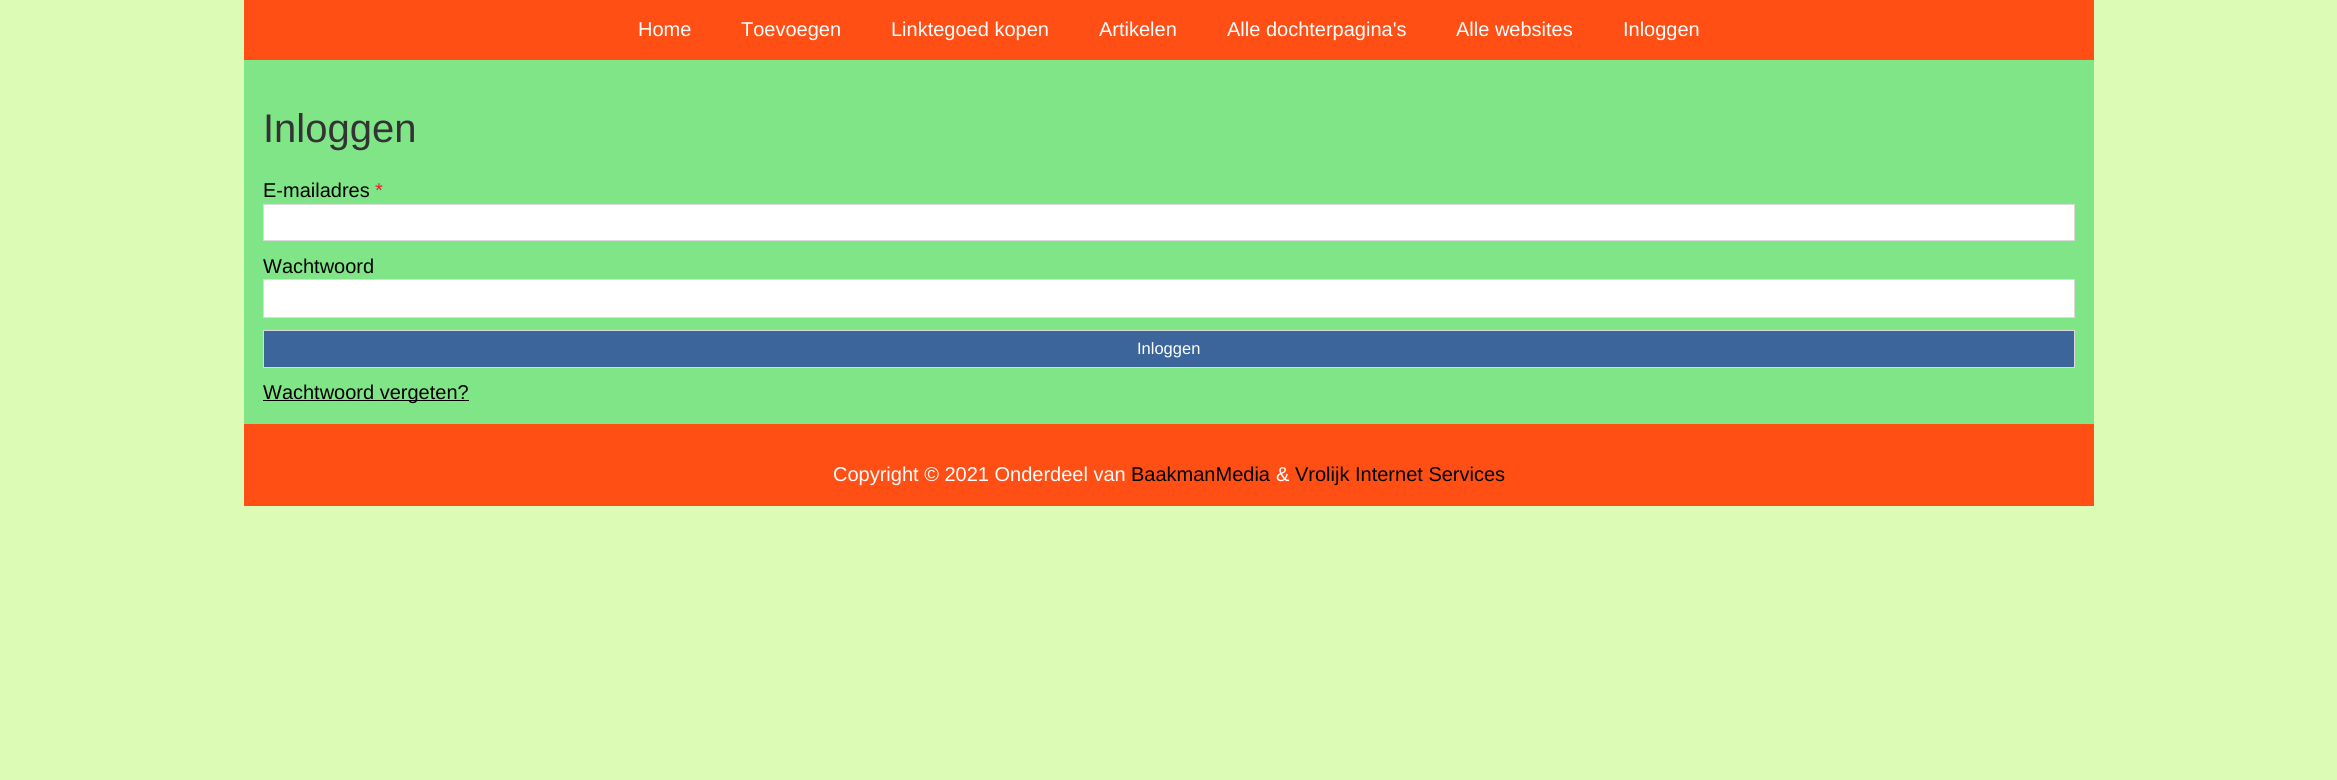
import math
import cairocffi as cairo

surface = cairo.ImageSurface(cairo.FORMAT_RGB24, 2337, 780)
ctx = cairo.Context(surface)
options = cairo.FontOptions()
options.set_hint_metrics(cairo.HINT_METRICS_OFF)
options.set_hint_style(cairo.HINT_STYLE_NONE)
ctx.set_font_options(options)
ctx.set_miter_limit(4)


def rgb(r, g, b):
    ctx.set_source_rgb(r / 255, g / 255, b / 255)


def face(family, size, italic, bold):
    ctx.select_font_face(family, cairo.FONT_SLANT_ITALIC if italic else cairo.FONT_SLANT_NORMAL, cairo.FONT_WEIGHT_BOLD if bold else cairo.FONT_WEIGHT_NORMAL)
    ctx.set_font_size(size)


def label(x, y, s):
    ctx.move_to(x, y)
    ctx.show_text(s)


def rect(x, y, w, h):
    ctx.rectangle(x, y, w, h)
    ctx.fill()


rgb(220, 252, 182)
ctx.paint()
rgb(255, 79, 20)
rect(244, 0, 1850, 60)
face('Liberation Sans', 20, 0, 0)
rgb(255, 255, 255)
label(638, 36, 'Home')
label(741, 36, 'Toevoegen')
label(891, 36, 'Linktegoed kopen')
label(1099, 36, 'Artikelen')
label(1227, 36, 'Alle dochterpagina\'s')
label(1456, 36, 'Alle websites')
label(1623, 36, 'Inloggen')
rgb(128, 229, 135)
rect(244, 60, 1850, 364)
face('Liberation Sans', 40, 0, 0)
rgb(51, 51, 51)
label(263, 142, 'Inloggen')
face('Liberation Sans', 20, 0, 0)
rgb(0, 0, 0)
label(263, 197, 'E-mailadres')
rgb(247, 23, 53)
label(375, 197, '*')
rgb(255, 255, 255)
ctx.rectangle(263.5, 204.5, 1811, 36)
ctx.fill_preserve()
rgb(218, 218, 218)
ctx.set_line_width(1)
ctx.stroke()
rgb(0, 0, 0)
label(263, 273, 'Wachtwoord')
rgb(255, 255, 255)
ctx.rectangle(263.5, 279.5, 1811, 38)
ctx.fill_preserve()
rgb(218, 218, 218)
ctx.stroke()
rgb(59, 101, 155)
ctx.rectangle(263.5, 330.5, 1811, 37)
ctx.fill_preserve()
rgb(218, 218, 218)
ctx.stroke()
face('Liberation Sans', 16.5, 0, 0)
rgb(255, 255, 255)
label(1137, 354, 'Inloggen')
rgb(0, 0, 0)
rect(263, 400, 206, 1)
face('Liberation Sans', 20, 0, 0)
label(263, 399, 'Wachtwoord vergeten?')
rgb(255, 79, 20)
rect(244, 424, 1850, 82)
rgb(255, 255, 255)
label(833, 481, 'Copyright © 2021 Onderdeel van')
rgb(0, 0, 0)
label(1131, 481, 'BaakmanMedia')
rgb(255, 255, 255)
label(1276, 481, '&')
rgb(0, 0, 0)
label(1295, 481, 'Vrolijk Internet Services')
surface.write_to_png('render.png')
